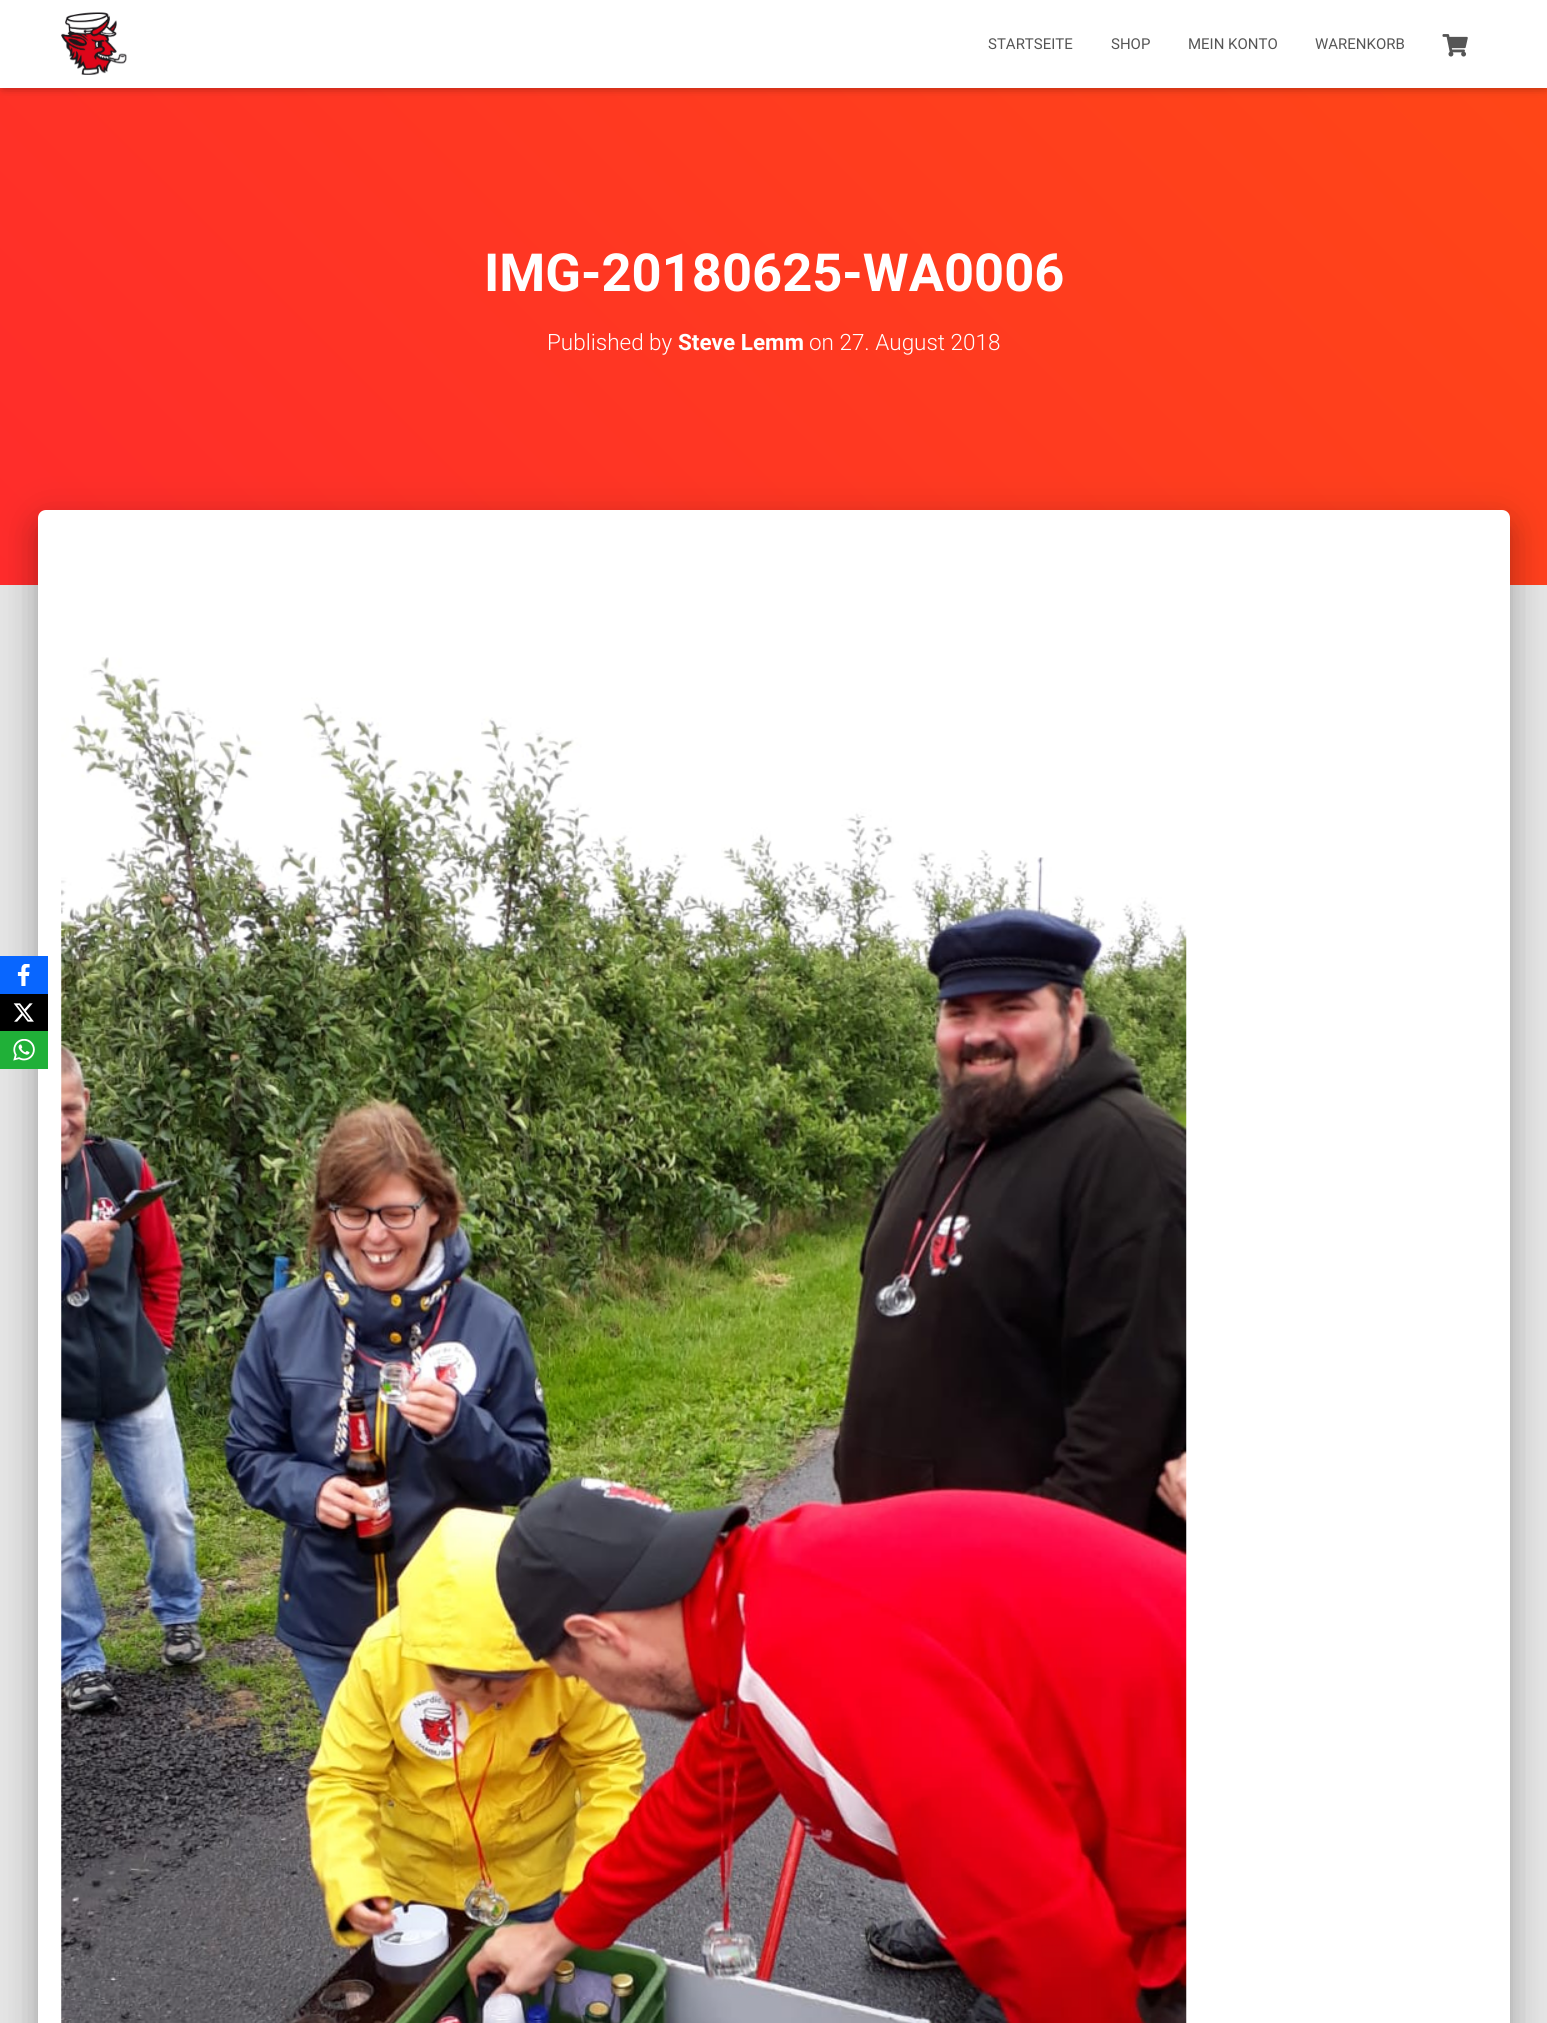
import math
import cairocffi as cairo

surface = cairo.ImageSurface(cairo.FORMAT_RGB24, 1547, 2023)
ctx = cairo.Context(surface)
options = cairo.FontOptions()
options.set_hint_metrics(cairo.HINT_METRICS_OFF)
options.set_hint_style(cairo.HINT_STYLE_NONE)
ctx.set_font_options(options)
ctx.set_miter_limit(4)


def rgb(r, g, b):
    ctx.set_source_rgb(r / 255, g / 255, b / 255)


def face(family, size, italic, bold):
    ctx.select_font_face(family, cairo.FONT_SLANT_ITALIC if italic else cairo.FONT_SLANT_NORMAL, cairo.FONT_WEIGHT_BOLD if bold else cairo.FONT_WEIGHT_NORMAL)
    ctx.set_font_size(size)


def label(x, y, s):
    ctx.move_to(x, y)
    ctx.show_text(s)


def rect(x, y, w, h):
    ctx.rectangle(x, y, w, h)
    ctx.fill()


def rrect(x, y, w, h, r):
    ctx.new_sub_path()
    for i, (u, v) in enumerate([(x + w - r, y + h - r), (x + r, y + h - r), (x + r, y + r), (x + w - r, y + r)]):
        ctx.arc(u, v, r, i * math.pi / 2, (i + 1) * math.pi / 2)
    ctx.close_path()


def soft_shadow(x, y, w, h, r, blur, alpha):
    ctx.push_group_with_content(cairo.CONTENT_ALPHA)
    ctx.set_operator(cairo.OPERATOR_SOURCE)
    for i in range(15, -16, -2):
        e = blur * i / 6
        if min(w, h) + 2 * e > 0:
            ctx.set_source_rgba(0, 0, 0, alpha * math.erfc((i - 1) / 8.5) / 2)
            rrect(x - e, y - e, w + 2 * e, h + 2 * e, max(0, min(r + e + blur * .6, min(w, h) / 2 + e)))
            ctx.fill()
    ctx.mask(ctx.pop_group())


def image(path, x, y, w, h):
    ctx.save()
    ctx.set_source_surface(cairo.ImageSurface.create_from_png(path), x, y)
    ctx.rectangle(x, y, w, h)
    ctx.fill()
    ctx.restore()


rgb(229, 229, 229)
ctx.paint()
gradient = cairo.LinearGradient(241, 826, 1307, -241)
gradient.add_color_stop_rgba(0, 1, 0.169, 0.169, 1)
gradient.add_color_stop_rgba(1, 1, 0.278, 0.086, 1)
ctx.set_source(gradient)
rect(0, 88, 1547, 497)
rgb(0, 0, 0)
soft_shadow(3, 8, 1542, 82, 0, 3, 0.1)
soft_shadow(0, 1, 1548, 88, 0, 6, 0.12)
soft_shadow(8, 9, 1532, 72, 0, 6, 0.42)
rgb(255, 255, 255)
rect(0, 0, 1547, 88)
image('image0.png', 61, 12, 66, 63)
face('Roboto', 15, 0, 0)
rgb(85, 85, 85)
label(988, 49, 'STARTSEITE')
label(1111, 49, 'SHOP')
label(1188, 49, 'MEIN KONTO')
label(1315, 49, 'WARENKORB')
image('image1.png', 1442, 34, 26, 23)
face('Roboto', 52.5, 0, 1)
rgb(255, 255, 255)
label(484, 291, 'IMG-20180625-WA0006')
face('Roboto Light', 22.5, 0, 0)
label(547, 350, 'Published by')
face('Roboto', 22.5, 0, 1)
label(678, 350, 'Steve Lemm')
face('Roboto Light', 22.5, 0, 0)
label(809, 350, 'on 27. August 2018')
rgb(0, 0, 0)
soft_shadow(44, 526, 1460, 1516, 1, 6, 0.2)
soft_shadow(31, 511, 1485, 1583, 14, 19, 0.12)
soft_shadow(35, 528, 1478, 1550, 10, 15, 0.14)
rgb(255, 255, 255)
ctx.new_path()
ctx.move_to(46, 510)
ctx.line_to(1502, 510)
ctx.curve_to(1506.5, 510, 1510, 513.5, 1510, 518)
ctx.line_to(1510, 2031)
ctx.line_to(38, 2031)
ctx.line_to(38, 518)
ctx.curve_to(38, 513.5, 41.5, 510, 46, 510)
ctx.close_path()
ctx.fill()
image('image2.png', 61, 657, 1126, 1366)
rgb(8, 102, 255)
rect(0, 956, 48, 38)
image('image3.png', 17, 964, 13, 22)
rgb(0, 0, 0)
rect(0, 994, 48, 37)
image('image4.png', 13, 1003, 21, 19)
rgb(32, 176, 56)
rect(0, 1031, 48, 38)
image('image5.png', 13, 1039, 22, 22)
surface.write_to_png('render.png')
